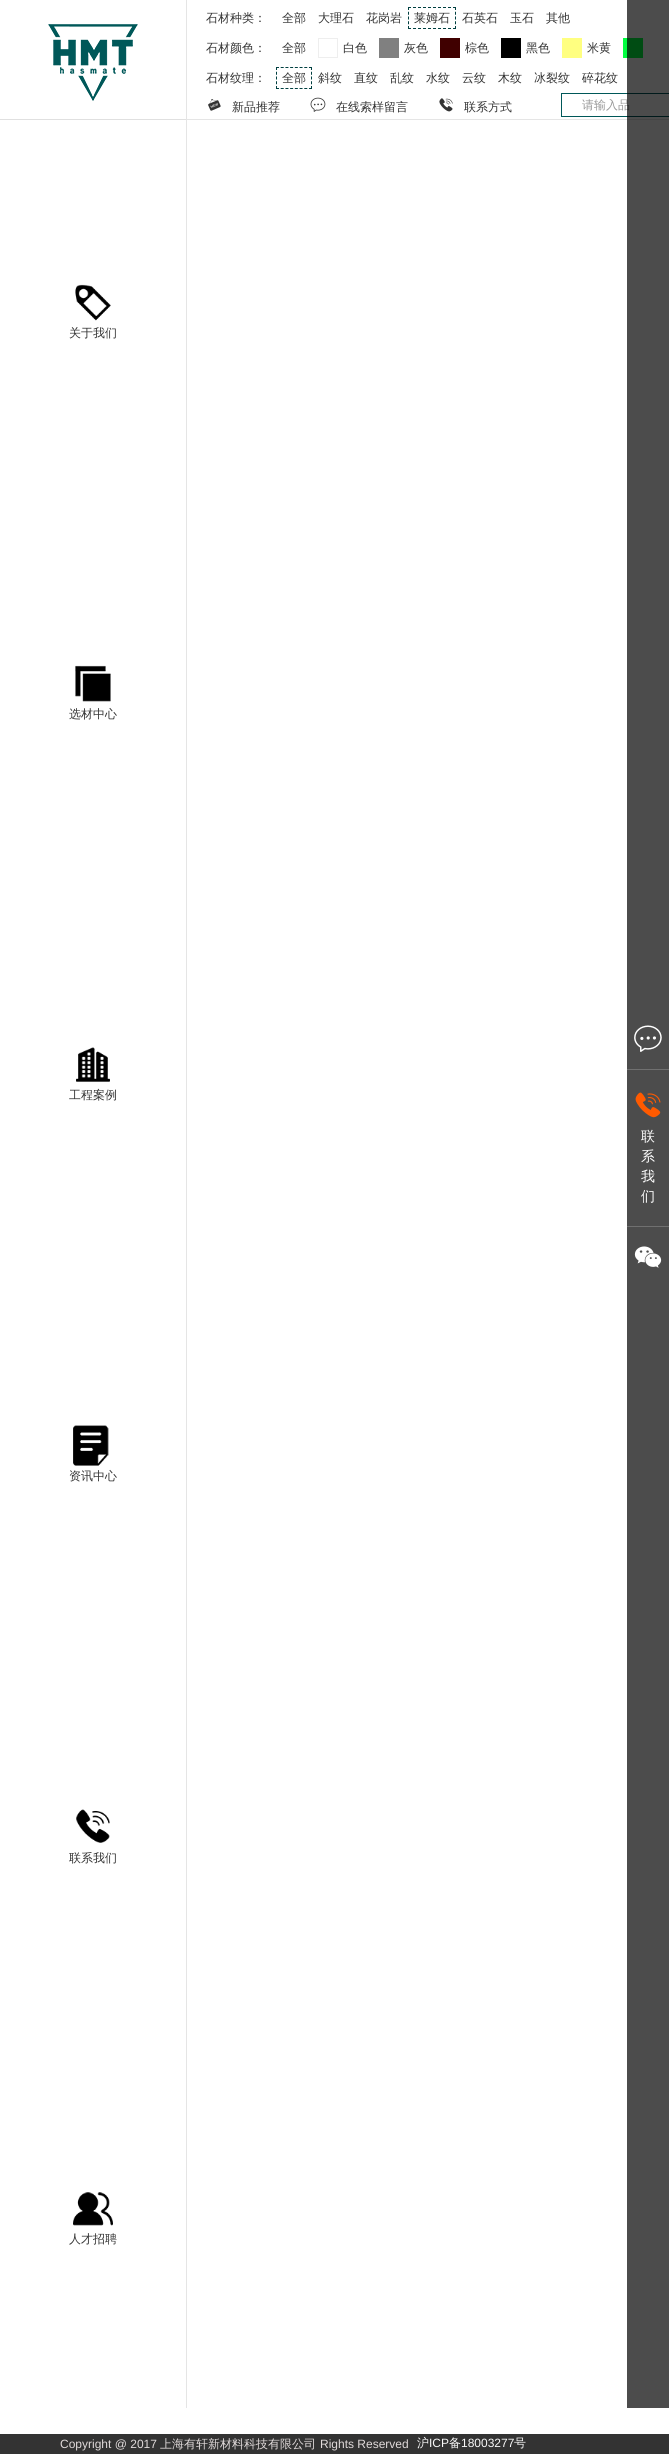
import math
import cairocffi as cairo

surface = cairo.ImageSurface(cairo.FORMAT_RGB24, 669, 2454)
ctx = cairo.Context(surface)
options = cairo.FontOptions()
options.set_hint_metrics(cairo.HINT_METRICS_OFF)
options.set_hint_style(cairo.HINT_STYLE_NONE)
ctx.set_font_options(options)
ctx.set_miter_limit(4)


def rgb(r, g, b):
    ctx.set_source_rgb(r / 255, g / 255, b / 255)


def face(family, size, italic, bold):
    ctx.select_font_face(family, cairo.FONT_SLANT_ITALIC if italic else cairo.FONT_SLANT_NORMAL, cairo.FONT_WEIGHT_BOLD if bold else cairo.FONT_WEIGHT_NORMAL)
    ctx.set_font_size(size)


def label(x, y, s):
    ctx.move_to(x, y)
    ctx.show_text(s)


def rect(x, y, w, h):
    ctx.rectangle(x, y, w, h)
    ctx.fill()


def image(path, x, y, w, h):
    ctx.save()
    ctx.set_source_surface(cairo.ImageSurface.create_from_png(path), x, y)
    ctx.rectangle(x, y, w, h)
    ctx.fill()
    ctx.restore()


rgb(255, 255, 255)
ctx.paint()
rgb(229, 229, 229)
rect(186, 119, 483, 1)
face('WenQuanYi Zen Hei Medium', 12, 0, 0)
rgb(51, 51, 51)
label(206, 22, '石材种类：')
label(282, 22, '全部')
label(318, 22, '大理石')
label(366, 22, '花岗岩')
ctx.new_path()
ctx.move_to(408, 7.5)
ctx.line_to(456, 7.5)
rgb(0, 63, 64)
ctx.set_line_width(1)
ctx.set_dash([3, 2])
ctx.stroke()
ctx.new_path()
ctx.move_to(455.5, 7)
ctx.line_to(455.5, 29)
ctx.set_dash([3, 1.75])
ctx.stroke()
ctx.new_path()
ctx.move_to(408, 28.5)
ctx.line_to(456, 28.5)
ctx.set_dash([3, 2])
ctx.stroke()
ctx.new_path()
ctx.move_to(408.5, 7)
ctx.line_to(408.5, 29)
ctx.set_dash([3, 1.75])
ctx.stroke()
rgb(51, 51, 51)
label(414, 22, '莱姆石')
label(462, 22, '石英石')
label(510, 22, '玉石')
label(546, 22, '其他')
label(206, 52, '石材颜色：')
label(282, 52, '全部')
ctx.rectangle(318.5, 38.5, 19, 19)
rgb(238, 238, 238)
ctx.set_dash([])
ctx.stroke()
rgb(51, 51, 51)
label(343, 52, '白色')
rgb(128, 128, 128)
rect(379, 38, 20, 20)
rgb(51, 51, 51)
label(404, 52, '灰色')
rgb(64, 0, 0)
rect(440, 38, 20, 20)
rgb(51, 51, 51)
label(465, 52, '棕色')
rgb(0, 0, 0)
rect(501, 38, 20, 20)
rgb(51, 51, 51)
label(526, 52, '黑色')
rgb(255, 255, 128)
rect(562, 38, 20, 20)
rgb(51, 51, 51)
label(587, 52, '米黄')
rgb(0, 255, 64)
rect(623, 38, 20, 20)
rgb(51, 51, 51)
label(206, 82, '石材纹理：')
ctx.new_path()
ctx.move_to(276, 67.5)
ctx.line_to(312, 67.5)
rgb(0, 63, 64)
ctx.set_dash([3, 1.71])
ctx.stroke()
ctx.new_path()
ctx.move_to(311.5, 67)
ctx.line_to(311.5, 89)
ctx.set_dash([3, 1.75])
ctx.stroke()
ctx.new_path()
ctx.move_to(276, 88.5)
ctx.line_to(312, 88.5)
ctx.set_dash([3, 1.71])
ctx.stroke()
ctx.new_path()
ctx.move_to(276.5, 67)
ctx.line_to(276.5, 89)
ctx.set_dash([3, 1.75])
ctx.stroke()
rgb(51, 51, 51)
label(282, 82, '全部')
label(318, 82, '斜纹')
label(354, 82, '直纹')
label(390, 82, '乱纹')
label(426, 82, '水纹')
label(462, 82, '云纹')
label(498, 82, '木纹')
label(534, 82, '冰裂纹')
label(582, 82, '碎花纹')
image('image0.png', 208, 99, 13, 12)
label(232, 111, '新品推荐')
image('image1.png', 310, 97, 16, 15)
label(336, 111, '在线索样留言')
image('image2.png', 439, 98, 14, 14)
label(464, 111, '联系方式')
ctx.rectangle(561.5, 93.5, 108, 23)
rgb(0, 88, 89)
ctx.set_dash([])
ctx.stroke()
rgb(153, 153, 153)
label(582, 109, '请输入品')
rgb(229, 229, 229)
rect(186, 0, 1, 2408)
rgb(224, 224, 224)
rect(0, 119, 186, 1)
image('image3.png', 48, 24, 90, 77)
image('image4.png', 75, 284, 36, 37)
rgb(51, 51, 51)
label(69, 337, '关于我们')
image('image5.png', 75, 665, 36, 37)
label(69, 718, '选材中心')
image('image6.png', 76, 1047, 34, 35)
label(69, 1099, '工程案例')
image('image7.png', 73, 1425, 36, 41)
label(69, 1480, '资讯中心')
image('image8.png', 76, 1809, 34, 34)
label(69, 1862, '联系我们')
image('image9.png', 73, 2192, 40, 34)
label(69, 2243, '人才招聘')
ctx.set_source_rgba(0, 0, 0, 0.7)
rect(627, 0, 42, 2408)
image('image10.png', 634, 1025, 28, 27)
rgb(112, 112, 112)
rect(627, 1069, 42, 1)
rect(627, 1226, 42, 1)
image('image11.png', 635, 1092, 26, 26)
face('WenQuanYi Zen Hei Medium', 14, 0, 0)
rgb(255, 255, 255)
label(641, 1141, '联')
label(641, 1161, '系')
label(641, 1181, '我')
label(641, 1201, '们')
image('image12.png', 634, 1246, 28, 22)
rgb(51, 51, 51)
rect(0, 2434, 669, 20)
face('Liberation Sans', 12, 0, 0)
rgb(224, 218, 218)
label(60, 2448, 'Copyright @ 2017')
face('WenQuanYi Zen Hei Medium', 12, 0, 0)
label(160, 2448, '上海有轩新材料科技有限公司')
face('Liberation Sans', 12, 0, 0)
label(320, 2448, 'Rights Reserved')
face('WenQuanYi Zen Hei Medium', 12, 0, 0)
rgb(249, 249, 249)
label(417, 2447, '沪')
face('Liberation Sans', 12, 0, 0)
label(429, 2447, 'ICP')
face('WenQuanYi Zen Hei Medium', 12, 0, 0)
label(449, 2447, '备')
face('Liberation Sans', 12, 0, 0)
label(461, 2447, '18003277')
face('WenQuanYi Zen Hei Medium', 12, 0, 0)
label(514, 2447, '号')
surface.write_to_png('render.png')
